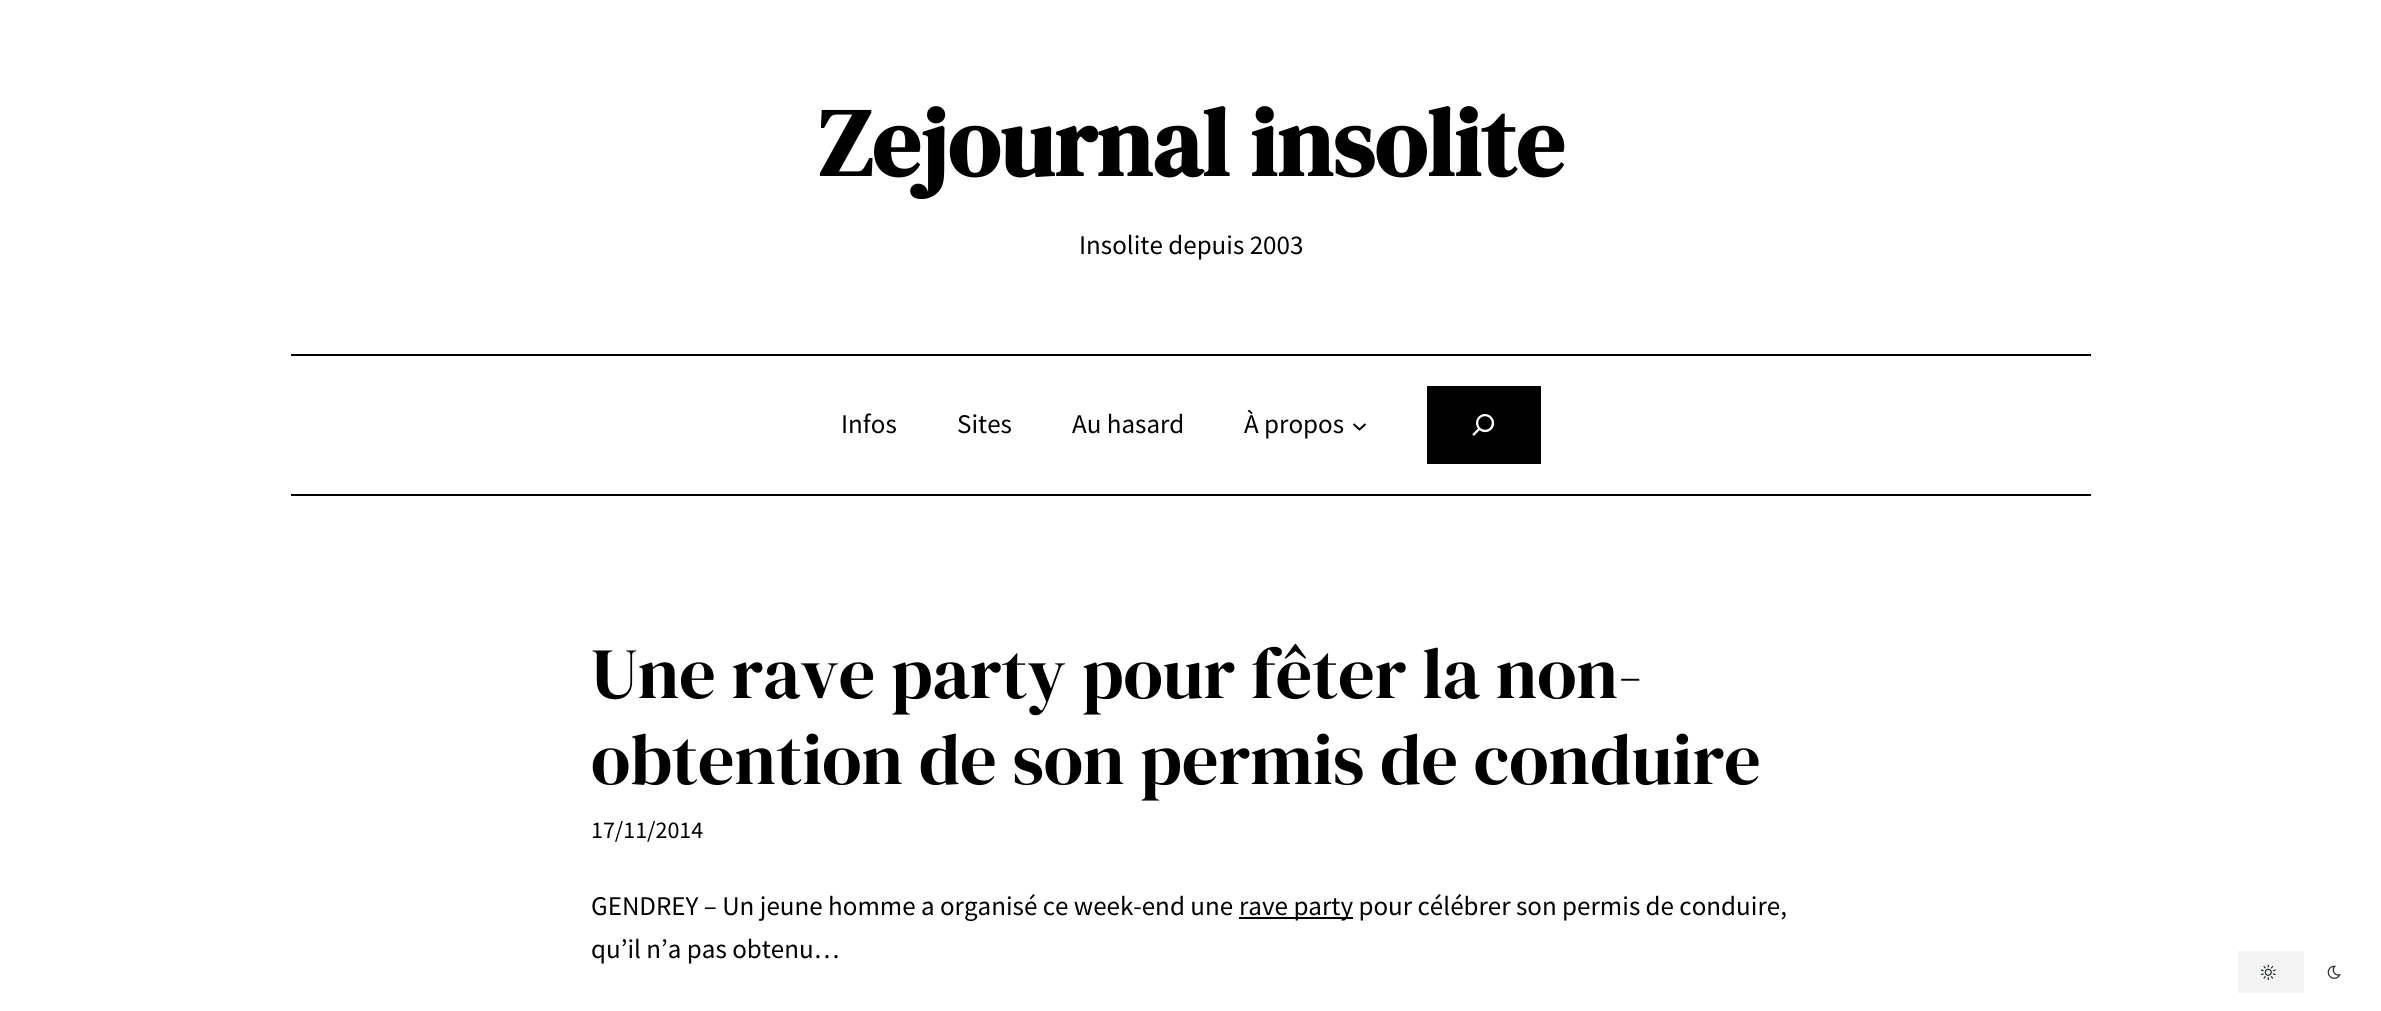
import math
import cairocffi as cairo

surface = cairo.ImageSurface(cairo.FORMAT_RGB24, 2381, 1011)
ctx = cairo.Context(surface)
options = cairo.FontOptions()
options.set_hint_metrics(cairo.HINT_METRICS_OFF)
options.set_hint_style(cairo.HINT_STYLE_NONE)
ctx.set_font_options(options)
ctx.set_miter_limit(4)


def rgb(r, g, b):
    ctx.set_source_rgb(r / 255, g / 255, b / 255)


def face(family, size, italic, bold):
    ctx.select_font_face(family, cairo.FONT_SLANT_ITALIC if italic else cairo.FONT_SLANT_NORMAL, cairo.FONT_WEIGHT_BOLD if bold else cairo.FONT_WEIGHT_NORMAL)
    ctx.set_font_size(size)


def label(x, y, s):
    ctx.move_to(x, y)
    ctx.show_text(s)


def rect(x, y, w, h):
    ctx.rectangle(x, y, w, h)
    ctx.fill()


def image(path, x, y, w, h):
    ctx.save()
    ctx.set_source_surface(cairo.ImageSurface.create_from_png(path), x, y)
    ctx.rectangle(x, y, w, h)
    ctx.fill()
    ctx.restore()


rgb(255, 255, 255)
ctx.paint()
face('DM Serif Display', 96, 0, 1)
rgb(0, 0, 0)
label(818, 176, 'Zejournal insolite')
face('Source Sans Pro', 27, 0, 0)
label(1079, 254, 'Insolite depuis 2003')
rect(291, 354, 1800, 2)
rect(291, 494, 1800, 2)
label(841, 433, 'Infos')
label(957, 433, 'Sites')
label(1072, 433, 'Au hasard')
label(1244, 433, 'À propos')
ctx.new_path()
ctx.move_to(1353.5, 424)
ctx.line_to(1359.5, 429.5)
ctx.line_to(1365.5, 424)
ctx.stroke()
rect(1427, 386, 114, 78)
image('image0.png', 1472, 414, 23, 22)
face('DM Serif Display', 72, 0, 0)
label(591, 698, 'Une rave party pour fêter la non-')
label(591, 784, 'obtention de son permis de conduire')
face('Source Sans Pro', 24, 0, 0)
label(591, 838, '17/11/2014')
face('Source Sans Pro', 27, 0, 0)
label(591, 915, 'GENDREY – Un jeune homme a organisé ce week-end une')
rect(1239, 917, 114, 2)
label(1239, 915, 'rave party pour célébrer son permis de conduire,')
label(591, 958, 'qu’il n’a pas obtenu…')
image('image1.png', 2260, 964, 16, 17)
ctx.set_source_rgba(0, 0, 0, 0.05)
rect(2238, 951, 66, 42)
image('image2.png', 2327, 965, 14, 14)
surface.write_to_png('render.png')
